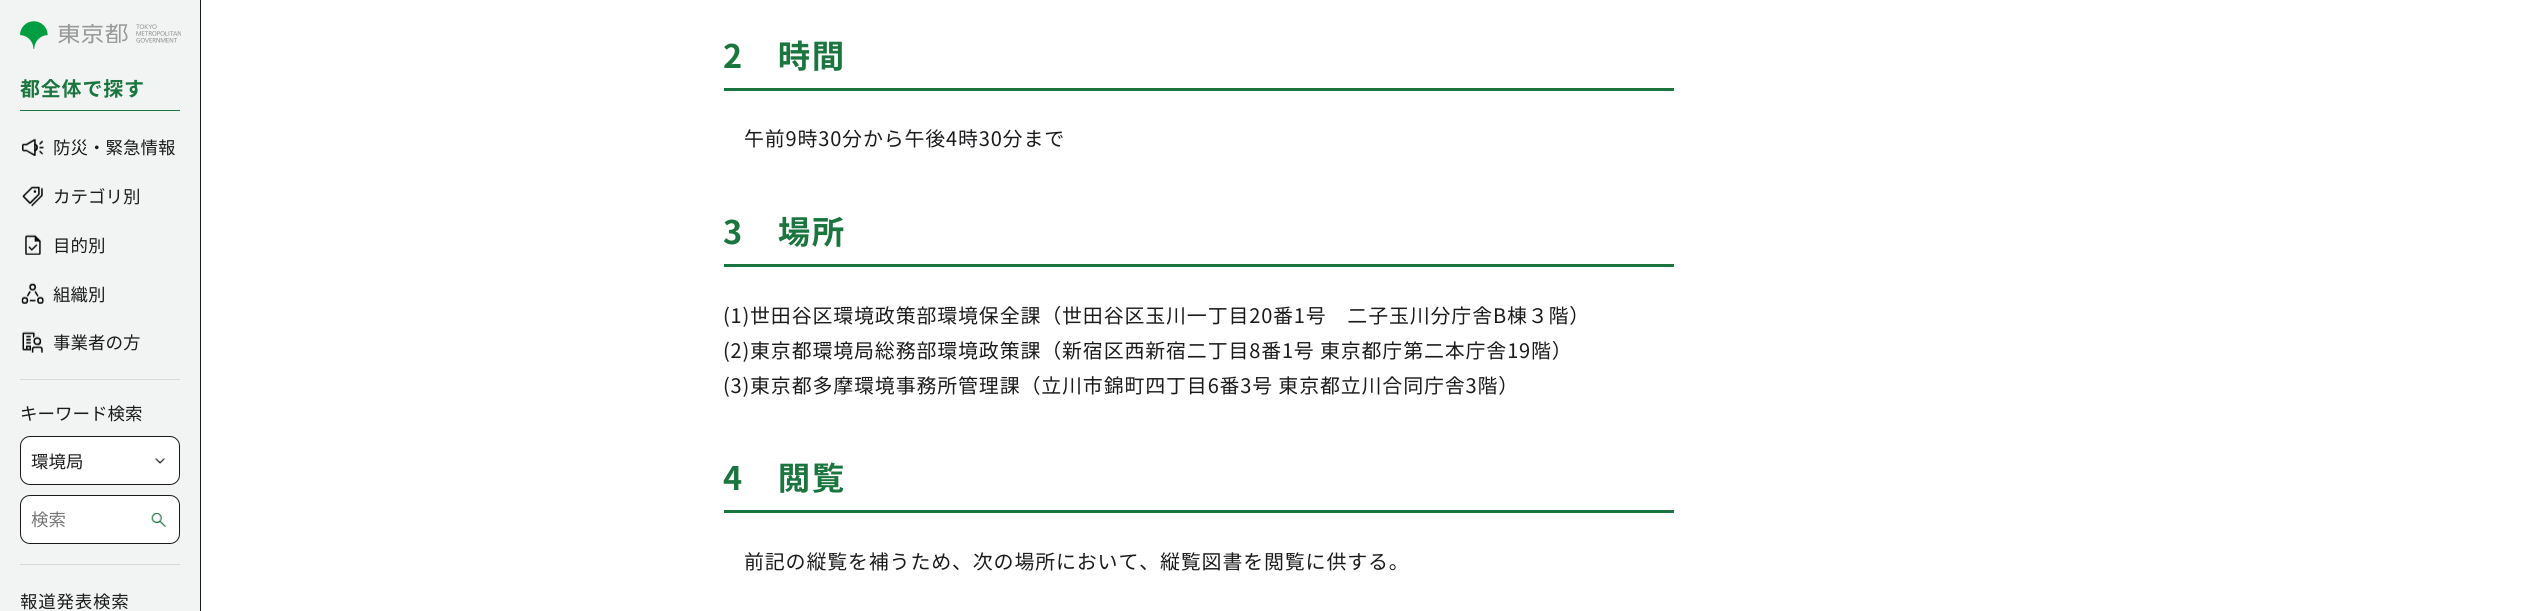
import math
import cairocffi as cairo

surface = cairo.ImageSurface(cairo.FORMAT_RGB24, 2525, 611)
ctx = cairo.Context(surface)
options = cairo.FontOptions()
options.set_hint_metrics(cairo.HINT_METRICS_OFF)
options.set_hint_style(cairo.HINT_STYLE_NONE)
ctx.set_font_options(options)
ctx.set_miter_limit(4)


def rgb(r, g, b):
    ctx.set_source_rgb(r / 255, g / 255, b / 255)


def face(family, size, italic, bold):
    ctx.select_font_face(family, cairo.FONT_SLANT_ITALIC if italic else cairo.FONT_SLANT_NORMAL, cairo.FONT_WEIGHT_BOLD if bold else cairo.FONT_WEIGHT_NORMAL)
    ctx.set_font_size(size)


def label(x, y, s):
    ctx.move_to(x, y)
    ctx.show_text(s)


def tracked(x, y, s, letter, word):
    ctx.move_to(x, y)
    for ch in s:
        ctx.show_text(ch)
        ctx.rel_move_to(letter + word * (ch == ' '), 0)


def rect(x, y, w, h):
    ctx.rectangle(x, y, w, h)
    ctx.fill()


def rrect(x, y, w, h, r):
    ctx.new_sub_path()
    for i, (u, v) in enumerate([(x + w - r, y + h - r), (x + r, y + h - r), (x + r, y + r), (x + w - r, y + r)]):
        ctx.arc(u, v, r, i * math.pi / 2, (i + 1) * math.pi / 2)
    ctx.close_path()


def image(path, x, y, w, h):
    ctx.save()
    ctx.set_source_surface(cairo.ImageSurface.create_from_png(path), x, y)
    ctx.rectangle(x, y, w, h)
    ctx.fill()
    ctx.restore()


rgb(255, 255, 255)
ctx.paint()
rgb(241, 244, 242)
rect(0, 0, 200, 611)
rgb(26, 26, 28)
rect(200, 0, 1, 611)
image('image0.png', 20, 21, 161, 28)
rgb(26, 117, 63)
rect(20, 110, 160, 1)
face('Noto Sans JP', 20, 0, 1)
tracked(20, 96, '都全体で探す', 0.8, 0)
image('image1.png', 22, 138, 22, 19)
face('Noto Sans JP', 17.5, 0, 0)
rgb(26, 26, 28)
label(53, 154, '防災・緊急情報')
image('image2.png', 22, 186, 21, 21)
label(53, 203, 'カテゴリ別')
image('image3.png', 25, 234, 16, 21)
label(53, 252, '目的別')
image('image4.png', 21, 283, 23, 21)
label(53, 301, '組織別')
image('image5.png', 22, 331, 21, 22)
label(53, 349, '事業者の方')
rgb(219, 219, 219)
rect(20, 379, 160, 1)
rgb(26, 26, 28)
label(20, 420, 'キーワード検索')
rgb(255, 255, 255)
rrect(20, 436, 160, 49, 10)
ctx.fill()
image('image6.png', 154, 458, 11, 6)
rrect(20.5, 436.5, 159, 48, 9.5)
rgb(26, 26, 28)
ctx.set_line_width(1)
ctx.stroke()
label(31, 468, '環境局')
rgb(255, 255, 255)
rrect(20.5, 495.5, 159, 48, 9.5)
ctx.fill_preserve()
rgb(26, 26, 28)
ctx.stroke()
rgb(117, 117, 117)
label(31, 526, '検索')
image('image7.png', 151, 513, 15, 14)
rgb(216, 216, 219)
rect(20, 564, 160, 1)
rgb(26, 26, 28)
tracked(20, 608, '報道発表検索', 0.75, 0)
rgb(26, 117, 63)
rect(724, 88, 950, 3)
face('Noto Sans JP', 32.5, 0, 1)
tracked(723, 68, '2　時間', 1.5, 0)
face('Noto Sans JP', 20, 0, 0)
rgb(26, 26, 28)
tracked(744, 146, '午前9時30分から午後4時30分まで', 0.8, 0)
rgb(26, 117, 63)
rect(724, 264, 950, 3)
face('Noto Sans JP', 32.5, 0, 1)
tracked(723, 244, '3　場所', 1.5, 0)
face('Noto Sans JP', 20, 0, 0)
rgb(26, 26, 28)
tracked(723, 323, '(1)世田谷区環境政策部環境保全課（世田谷区玉川一丁目20番1号　二子玉川分庁舎B棟３階）', 0.8, 0)
tracked(723, 358, '(2)東京都環境局総務部環境政策課（新宿区西新宿二丁目8番1号 東京都庁第二本庁舎19階）', 0.8, 0)
tracked(723, 393, '(3)東京都多摩環境事務所管理課（立川市錦町四丁目6番3号 東京都立川合同庁舎3階）', 0.8, 0)
rgb(26, 117, 63)
rect(724, 510, 950, 3)
face('Noto Sans JP', 32.5, 0, 1)
tracked(723, 490, '4　閲覧', 1.5, 0)
face('Noto Sans JP', 20, 0, 0)
rgb(26, 26, 28)
tracked(744, 569, '前記の縦覧を補うため、次の場所において、縦覧図書を閲覧に供する。', 0.8, 0)
surface.write_to_png('render.png')
